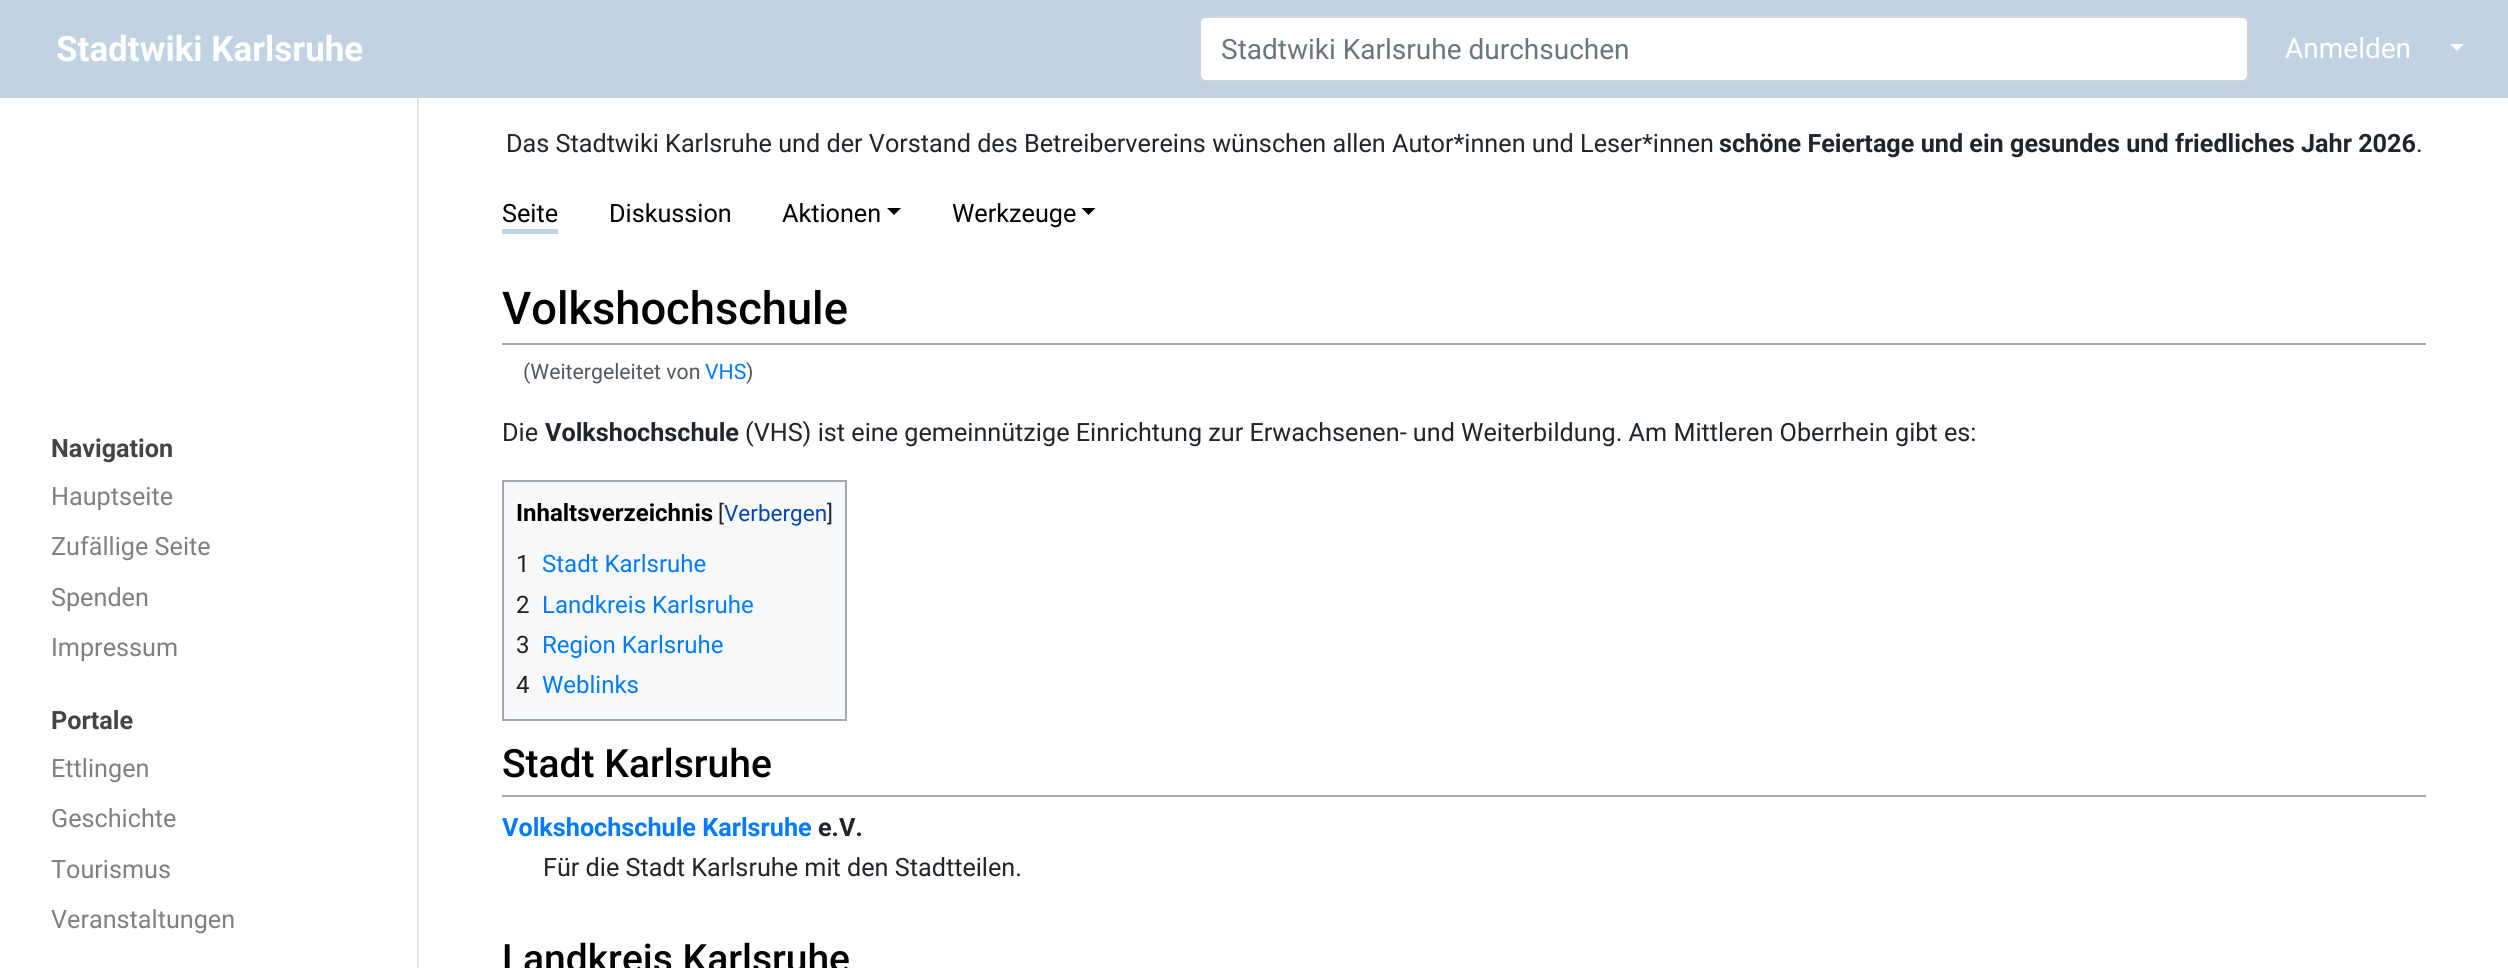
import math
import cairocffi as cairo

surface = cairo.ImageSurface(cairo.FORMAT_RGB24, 2508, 968)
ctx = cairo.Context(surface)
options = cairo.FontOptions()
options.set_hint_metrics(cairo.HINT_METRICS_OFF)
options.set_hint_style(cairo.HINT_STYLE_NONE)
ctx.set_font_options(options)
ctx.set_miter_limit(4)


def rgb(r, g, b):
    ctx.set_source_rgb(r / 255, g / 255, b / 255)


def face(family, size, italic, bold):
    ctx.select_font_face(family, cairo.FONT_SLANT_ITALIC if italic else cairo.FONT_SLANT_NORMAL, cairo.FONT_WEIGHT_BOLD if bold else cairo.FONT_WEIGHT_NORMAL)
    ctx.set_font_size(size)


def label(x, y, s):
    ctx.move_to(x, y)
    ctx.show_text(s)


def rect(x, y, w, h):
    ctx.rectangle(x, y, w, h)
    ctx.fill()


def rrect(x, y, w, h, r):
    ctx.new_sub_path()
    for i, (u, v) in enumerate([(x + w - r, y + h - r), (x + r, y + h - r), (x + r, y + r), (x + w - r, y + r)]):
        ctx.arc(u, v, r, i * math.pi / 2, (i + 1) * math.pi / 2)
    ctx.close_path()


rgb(255, 255, 255)
ctx.paint()
rgb(193, 210, 226)
rect(0, 0, 2508, 98)
face('Roboto', 35, 0, 1)
rgb(255, 255, 255)
label(56, 61, 'Stadtwiki Karlsruhe')
rrect(1200, 17, 1048, 64, 6)
ctx.fill_preserve()
rgb(206, 212, 218)
ctx.stroke()
face('Roboto', 28, 0, 0)
rgb(108, 117, 125)
label(1221, 59, 'Stadtwiki Karlsruhe durchsuchen')
rgb(255, 255, 255)
label(2285, 58, 'Anmelden')
ctx.new_path()
ctx.move_to(2450, 44)
ctx.line_to(2464, 44)
ctx.line_to(2457, 51)
ctx.close_path()
ctx.fill()
rgb(229, 229, 229)
rect(417, 98, 2, 870)
face('Roboto', 25.2, 0, 1)
rgb(68, 68, 68)
label(51, 457, 'Navigation')
face('Roboto', 25.2, 0, 0)
rgb(128, 128, 128)
label(51, 505, 'Hauptseite')
label(51, 555, 'Zufällige Seite')
label(51, 606, 'Spenden')
label(51, 656, 'Impressum')
face('Roboto', 25.2, 0, 1)
rgb(68, 68, 68)
label(51, 729, 'Portale')
face('Roboto', 25.2, 0, 0)
rgb(128, 128, 128)
label(51, 777, 'Ettlingen')
label(51, 827, 'Geschichte')
label(51, 878, 'Tourismus')
label(51, 928, 'Veranstaltungen')
rgb(33, 37, 41)
label(506, 152, 'Das Stadtwiki Karlsruhe und der Vorstand des Betreibervereins wünschen allen Autor*innen und Leser*innen')
face('Roboto', 25.2, 0, 1)
label(1719, 152, 'schöne Feiertage und ein gesundes und friedliches Jahr 2026')
face('Roboto', 25.2, 0, 0)
label(2416, 152, '.')
rgb(0, 0, 0)
label(502, 222, 'Seite')
rgb(193, 210, 226)
rect(502, 229, 56, 5)
rgb(0, 0, 0)
label(609, 222, 'Diskussion')
label(782, 222, 'Aktionen')
ctx.new_path()
ctx.move_to(887, 208)
ctx.line_to(901, 208)
ctx.line_to(894, 215)
ctx.close_path()
ctx.fill()
label(952, 222, 'Werkzeuge')
ctx.new_path()
ctx.move_to(1081.5, 208)
ctx.line_to(1095.5, 208)
ctx.line_to(1088.5, 215)
ctx.close_path()
ctx.fill()
rgb(162, 169, 177)
rect(502, 343, 1924, 2)
face('Roboto Medium', 45.25, 0, 0)
rgb(0, 0, 0)
label(502, 324, 'Volkshochschule')
face('Roboto', 21.25, 0, 0)
rgb(84, 89, 93)
label(523, 379, '(Weitergeleitet von')
rgb(0, 123, 255)
label(705, 379, 'VHS')
rgb(84, 89, 93)
label(746, 379, ')')
face('Roboto', 25.2, 0, 0)
rgb(33, 37, 41)
label(502, 441, 'Die')
face('Roboto', 25.2, 0, 1)
label(545, 441, 'Volkshochschule')
face('Roboto', 25.2, 0, 0)
label(745, 441, '(VHS) ist eine gemeinnützige Einrichtung zur Erwachsenen- und Weiterbildung. Am Mittleren Oberrhein gibt es:')
rgb(248, 249, 250)
ctx.rectangle(503, 481, 343, 239)
ctx.fill_preserve()
rgb(162, 169, 177)
ctx.stroke()
face('Roboto', 24, 0, 1)
rgb(0, 0, 0)
label(516, 521, 'Inhaltsverzeichnis')
face('Roboto', 22.5, 0, 0)
rgb(33, 37, 41)
label(718, 521, '[')
rgb(6, 69, 173)
label(724, 521, 'Verbergen')
rgb(33, 37, 41)
label(827, 521, ']')
face('Roboto', 24, 0, 0)
rgb(32, 33, 34)
label(516, 572, '1')
rgb(0, 123, 255)
label(542, 572, 'Stadt Karlsruhe')
rgb(32, 33, 34)
label(516, 613, '2')
rgb(0, 123, 255)
label(542, 613, 'Landkreis Karlsruhe')
rgb(32, 33, 34)
label(516, 653, '3')
rgb(0, 123, 255)
label(542, 653, 'Region Karlsruhe')
rgb(32, 33, 34)
label(516, 693, '4')
rgb(0, 123, 255)
label(542, 693, 'Weblinks')
rgb(162, 169, 177)
rect(502, 795, 1924, 2)
face('Roboto Medium', 39, 0, 0)
rgb(0, 0, 0)
label(502, 777, 'Stadt Karlsruhe')
face('Roboto', 25.2, 0, 1)
rgb(0, 123, 255)
label(502, 836, 'Volkshochschule Karlsruhe')
rgb(33, 37, 41)
label(818, 836, 'e.V.')
face('Roboto', 25.2, 0, 0)
label(543, 876, 'Für die Stadt Karlsruhe mit den Stadtteilen.')
face('Roboto Medium', 39, 0, 0)
rgb(0, 0, 0)
label(502, 972, 'Landkreis Karlsruhe')
surface.write_to_png('render.png')
